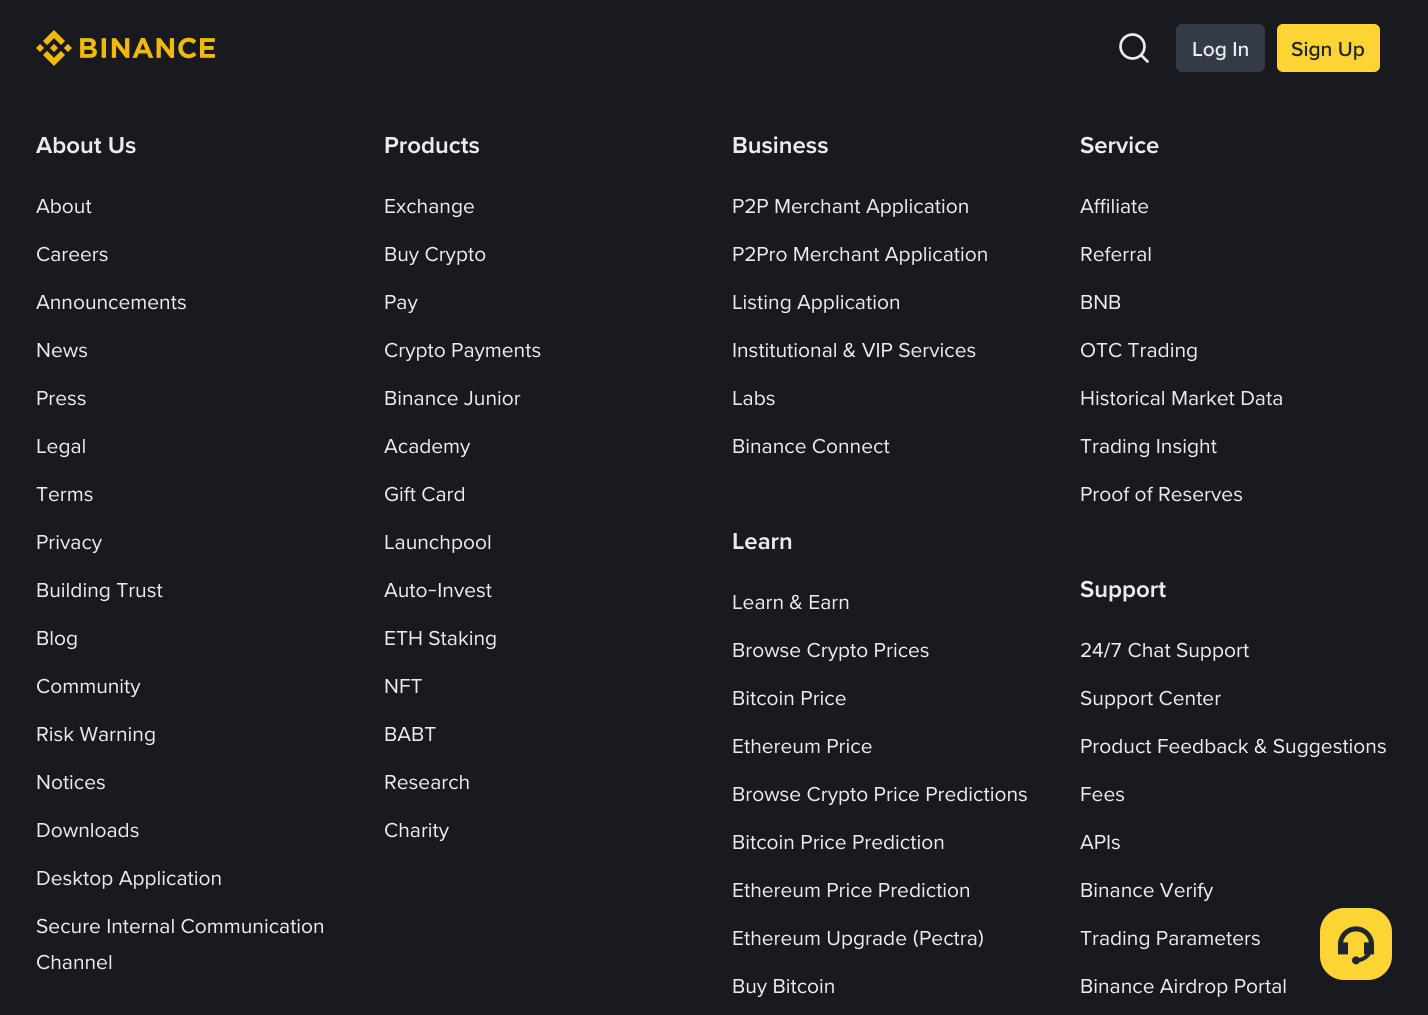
import math
import cairocffi as cairo

surface = cairo.ImageSurface(cairo.FORMAT_RGB24, 1428, 1015)
ctx = cairo.Context(surface)
options = cairo.FontOptions()
options.set_hint_metrics(cairo.HINT_METRICS_OFF)
options.set_hint_style(cairo.HINT_STYLE_NONE)
ctx.set_font_options(options)
ctx.set_miter_limit(4)


def rgb(r, g, b):
    ctx.set_source_rgb(r / 255, g / 255, b / 255)


def face(family, size, italic, bold):
    ctx.select_font_face(family, cairo.FONT_SLANT_ITALIC if italic else cairo.FONT_SLANT_NORMAL, cairo.FONT_WEIGHT_BOLD if bold else cairo.FONT_WEIGHT_NORMAL)
    ctx.set_font_size(size)


def label(x, y, s):
    ctx.move_to(x, y)
    ctx.show_text(s)


def rrect(x, y, w, h, r):
    ctx.new_sub_path()
    for i, (u, v) in enumerate([(x + w - r, y + h - r), (x + r, y + h - r), (x + r, y + r), (x + w - r, y + r)]):
        ctx.arc(u, v, r, i * math.pi / 2, (i + 1) * math.pi / 2)
    ctx.close_path()


def image(path, x, y, w, h):
    ctx.save()
    ctx.set_source_surface(cairo.ImageSurface.create_from_png(path), x, y)
    ctx.rectangle(x, y, w, h)
    ctx.fill()
    ctx.restore()


rgb(24, 26, 32)
ctx.paint()
image('image0.png', 36, 30, 179, 36)
image('image1.png', 1119, 33, 30, 30)
rgb(51, 59, 71)
rrect(1176, 24, 89, 48, 6)
ctx.fill()
face('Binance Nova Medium', 21, 0, 0)
rgb(234, 236, 239)
label(1192, 56, 'Log In')
rgb(252, 213, 53)
rrect(1277, 24, 103, 48, 6)
ctx.fill()
rgb(32, 38, 48)
label(1291, 56, 'Sign Up')
face('Binance Nova SemiBold', 24, 0, 0)
rgb(234, 236, 239)
label(36, 153, 'About Us')
face('Binance Nova', 21, 0, 0)
label(36, 213, 'About')
label(36, 261, 'Careers')
label(36, 309, 'Announcements')
label(36, 357, 'News')
label(36, 405, 'Press')
label(36, 453, 'Legal')
label(36, 501, 'Terms')
label(36, 549, 'Privacy')
label(36, 597, 'Building Trust')
label(36, 645, 'Blog')
label(36, 693, 'Community')
label(36, 741, 'Risk Warning')
label(36, 789, 'Notices')
label(36, 837, 'Downloads')
label(36, 885, 'Desktop Application')
label(36, 933, 'Secure Internal Communication')
label(36, 969, 'Channel')
face('Binance Nova SemiBold', 24, 0, 0)
label(384, 153, 'Products')
face('Binance Nova', 21, 0, 0)
label(384, 213, 'Exchange')
label(384, 261, 'Buy Crypto')
label(384, 309, 'Pay')
label(384, 357, 'Crypto Payments')
label(384, 405, 'Binance Junior')
label(384, 453, 'Academy')
label(384, 501, 'Gift Card')
label(384, 549, 'Launchpool')
label(384, 597, 'Auto-Invest')
label(384, 645, 'ETH Staking')
label(384, 693, 'NFT')
label(384, 741, 'BABT')
label(384, 789, 'Research')
label(384, 837, 'Charity')
face('Binance Nova SemiBold', 24, 0, 0)
label(732, 153, 'Business')
face('Binance Nova', 21, 0, 0)
label(732, 213, 'P2P Merchant Application')
label(732, 261, 'P2Pro Merchant Application')
label(732, 309, 'Listing Application')
label(732, 357, 'Institutional & VIP Services')
label(732, 405, 'Labs')
label(732, 453, 'Binance Connect')
face('Binance Nova SemiBold', 24, 0, 0)
label(732, 549, 'Learn')
face('Binance Nova', 21, 0, 0)
label(732, 609, 'Learn & Earn')
label(732, 657, 'Browse Crypto Prices')
label(732, 705, 'Bitcoin Price')
label(732, 753, 'Ethereum Price')
label(732, 801, 'Browse Crypto Price Predictions')
label(732, 849, 'Bitcoin Price Prediction')
label(732, 897, 'Ethereum Price Prediction')
label(732, 945, 'Ethereum Upgrade (Pectra)')
label(732, 993, 'Buy Bitcoin')
face('Binance Nova SemiBold', 24, 0, 0)
label(1080, 153, 'Service')
face('Binance Nova', 21, 0, 0)
label(1080, 213, 'Affiliate')
label(1080, 261, 'Referral')
label(1080, 309, 'BNB')
label(1080, 357, 'OTC Trading')
label(1080, 405, 'Historical Market Data')
label(1080, 453, 'Trading Insight')
label(1080, 501, 'Proof of Reserves')
face('Binance Nova SemiBold', 24, 0, 0)
label(1080, 597, 'Support')
face('Binance Nova', 21, 0, 0)
label(1080, 657, '24/7 Chat Support')
label(1080, 705, 'Support Center')
label(1080, 753, 'Product Feedback & Suggestions')
label(1080, 801, 'Fees')
label(1080, 849, 'APIs')
label(1080, 897, 'Binance Verify')
label(1080, 945, 'Trading Parameters')
label(1080, 993, 'Binance Airdrop Portal')
rgb(252, 213, 53)
rrect(1320, 908, 72, 72, 24)
ctx.fill()
image('image2.png', 1338, 926, 36, 39)
surface.write_to_png('render.png')
